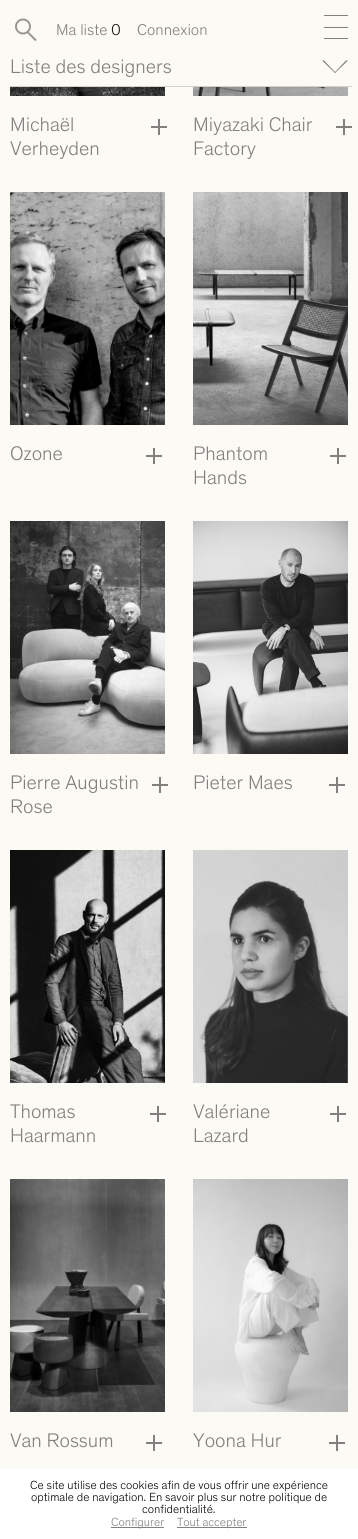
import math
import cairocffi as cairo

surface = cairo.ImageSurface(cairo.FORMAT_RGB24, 358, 1539)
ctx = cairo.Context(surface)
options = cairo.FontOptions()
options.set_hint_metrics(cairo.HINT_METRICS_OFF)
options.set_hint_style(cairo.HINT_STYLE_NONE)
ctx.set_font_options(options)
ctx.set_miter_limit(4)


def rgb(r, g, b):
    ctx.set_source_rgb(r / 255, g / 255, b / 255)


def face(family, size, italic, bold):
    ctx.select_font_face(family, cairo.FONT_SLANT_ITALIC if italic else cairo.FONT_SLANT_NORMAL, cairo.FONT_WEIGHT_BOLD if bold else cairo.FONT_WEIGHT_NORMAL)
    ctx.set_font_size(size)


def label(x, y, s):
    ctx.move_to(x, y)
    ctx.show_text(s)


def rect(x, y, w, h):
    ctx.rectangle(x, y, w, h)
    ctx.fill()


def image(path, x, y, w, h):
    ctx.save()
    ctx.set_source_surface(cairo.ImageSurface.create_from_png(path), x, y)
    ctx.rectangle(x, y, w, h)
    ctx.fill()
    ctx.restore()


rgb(252, 250, 245)
ctx.paint()
ctx.arc(23, 26.5, 7, 0, 2 * math.pi)
rgb(155, 149, 149)
ctx.stroke()
ctx.new_path()
ctx.move_to(27.5, 32)
ctx.line_to(36, 40.5)
ctx.stroke()
face('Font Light', 16, 0, 0)
rgb(129, 128, 126)
label(56, 35, 'Ma liste')
rgb(25, 25, 24)
label(111, 35, '0')
rgb(129, 128, 126)
label(137, 35, 'Connexion')
rect(324, 15, 24, 1)
rect(324, 27, 24, 1)
rect(324, 38, 24, 1)
face('Font Light', 20, 0, 0)
label(10, 73, 'Liste des designers')
ctx.new_path()
ctx.move_to(323.5, 60)
ctx.line_to(335.5, 72.5)
ctx.line_to(335, 73)
ctx.line_to(322.5, 61)
ctx.close_path()
ctx.fill()
ctx.new_path()
ctx.move_to(334.5, 72.5)
ctx.line_to(346.5, 60)
ctx.line_to(347.5, 61)
ctx.line_to(335, 73)
ctx.close_path()
ctx.fill()
rgb(211, 209, 205)
rect(10, 86, 342, 1)
image('image0.png', 10, 87, 155, 9)
rgb(129, 128, 126)
label(10, 131, 'Michaël')
label(10, 155, 'Verheyden')
rect(158, 119, 2, 16)
rect(151, 126, 16, 2)
image('image1.png', 193, 87, 155, 9)
label(193, 131, 'Miyazaki Chair')
label(193, 155, 'Factory')
rect(343, 119, 2, 16)
rect(336, 126, 16, 2)
image('image2.png', 10, 192, 155, 233)
label(10, 460, 'Ozone')
rect(153, 448, 2, 16)
rect(146, 455, 16, 2)
image('image3.png', 193, 192, 155, 233)
label(193, 460, 'Phantom')
label(193, 484, 'Hands')
rect(337, 448, 2, 16)
rect(330, 455, 16, 2)
image('image4.png', 10, 521, 155, 233)
label(10, 789, 'Pierre Augustin')
label(10, 813, 'Rose')
rect(159, 777, 2, 16)
rect(152, 784, 16, 2)
image('image5.png', 193, 521, 155, 233)
label(193, 789, 'Pieter Maes')
rect(336, 777, 2, 16)
rect(329, 784, 16, 2)
image('image6.png', 10, 850, 155, 233)
label(10, 1118, 'Thomas')
label(10, 1142, 'Haarmann')
rect(157, 1106, 2, 16)
rect(150, 1113, 16, 2)
image('image7.png', 193, 850, 155, 233)
label(193, 1118, 'Valériane')
label(193, 1142, 'Lazard')
rect(337, 1106, 2, 16)
rect(330, 1113, 16, 2)
image('image8.png', 10, 1179, 155, 233)
label(10, 1447, 'Van Rossum')
rect(153, 1435, 2, 16)
rect(146, 1442, 16, 2)
image('image9.png', 193, 1179, 155, 233)
label(193, 1447, 'Yoona Hur')
rect(336, 1435, 2, 16)
rect(329, 1442, 16, 2)
rgb(255, 255, 255)
rect(0, 1469, 358, 70)
face('Font Light', 12, 0, 0)
rgb(0, 0, 0)
label(30, 1489, 'Ce site utilise des cookies afin de vous offrir une expérience')
label(31, 1501, 'optimale de navigation. En savoir plus sur notre politique de')
label(142, 1513, 'confidentialité.')
rgb(129, 128, 126)
rect(111, 1527, 53, 1)
label(111, 1526, 'Configurer')
rect(177, 1527, 70, 1)
label(177, 1526, 'Tout accepter')
surface.write_to_png('render.png')
